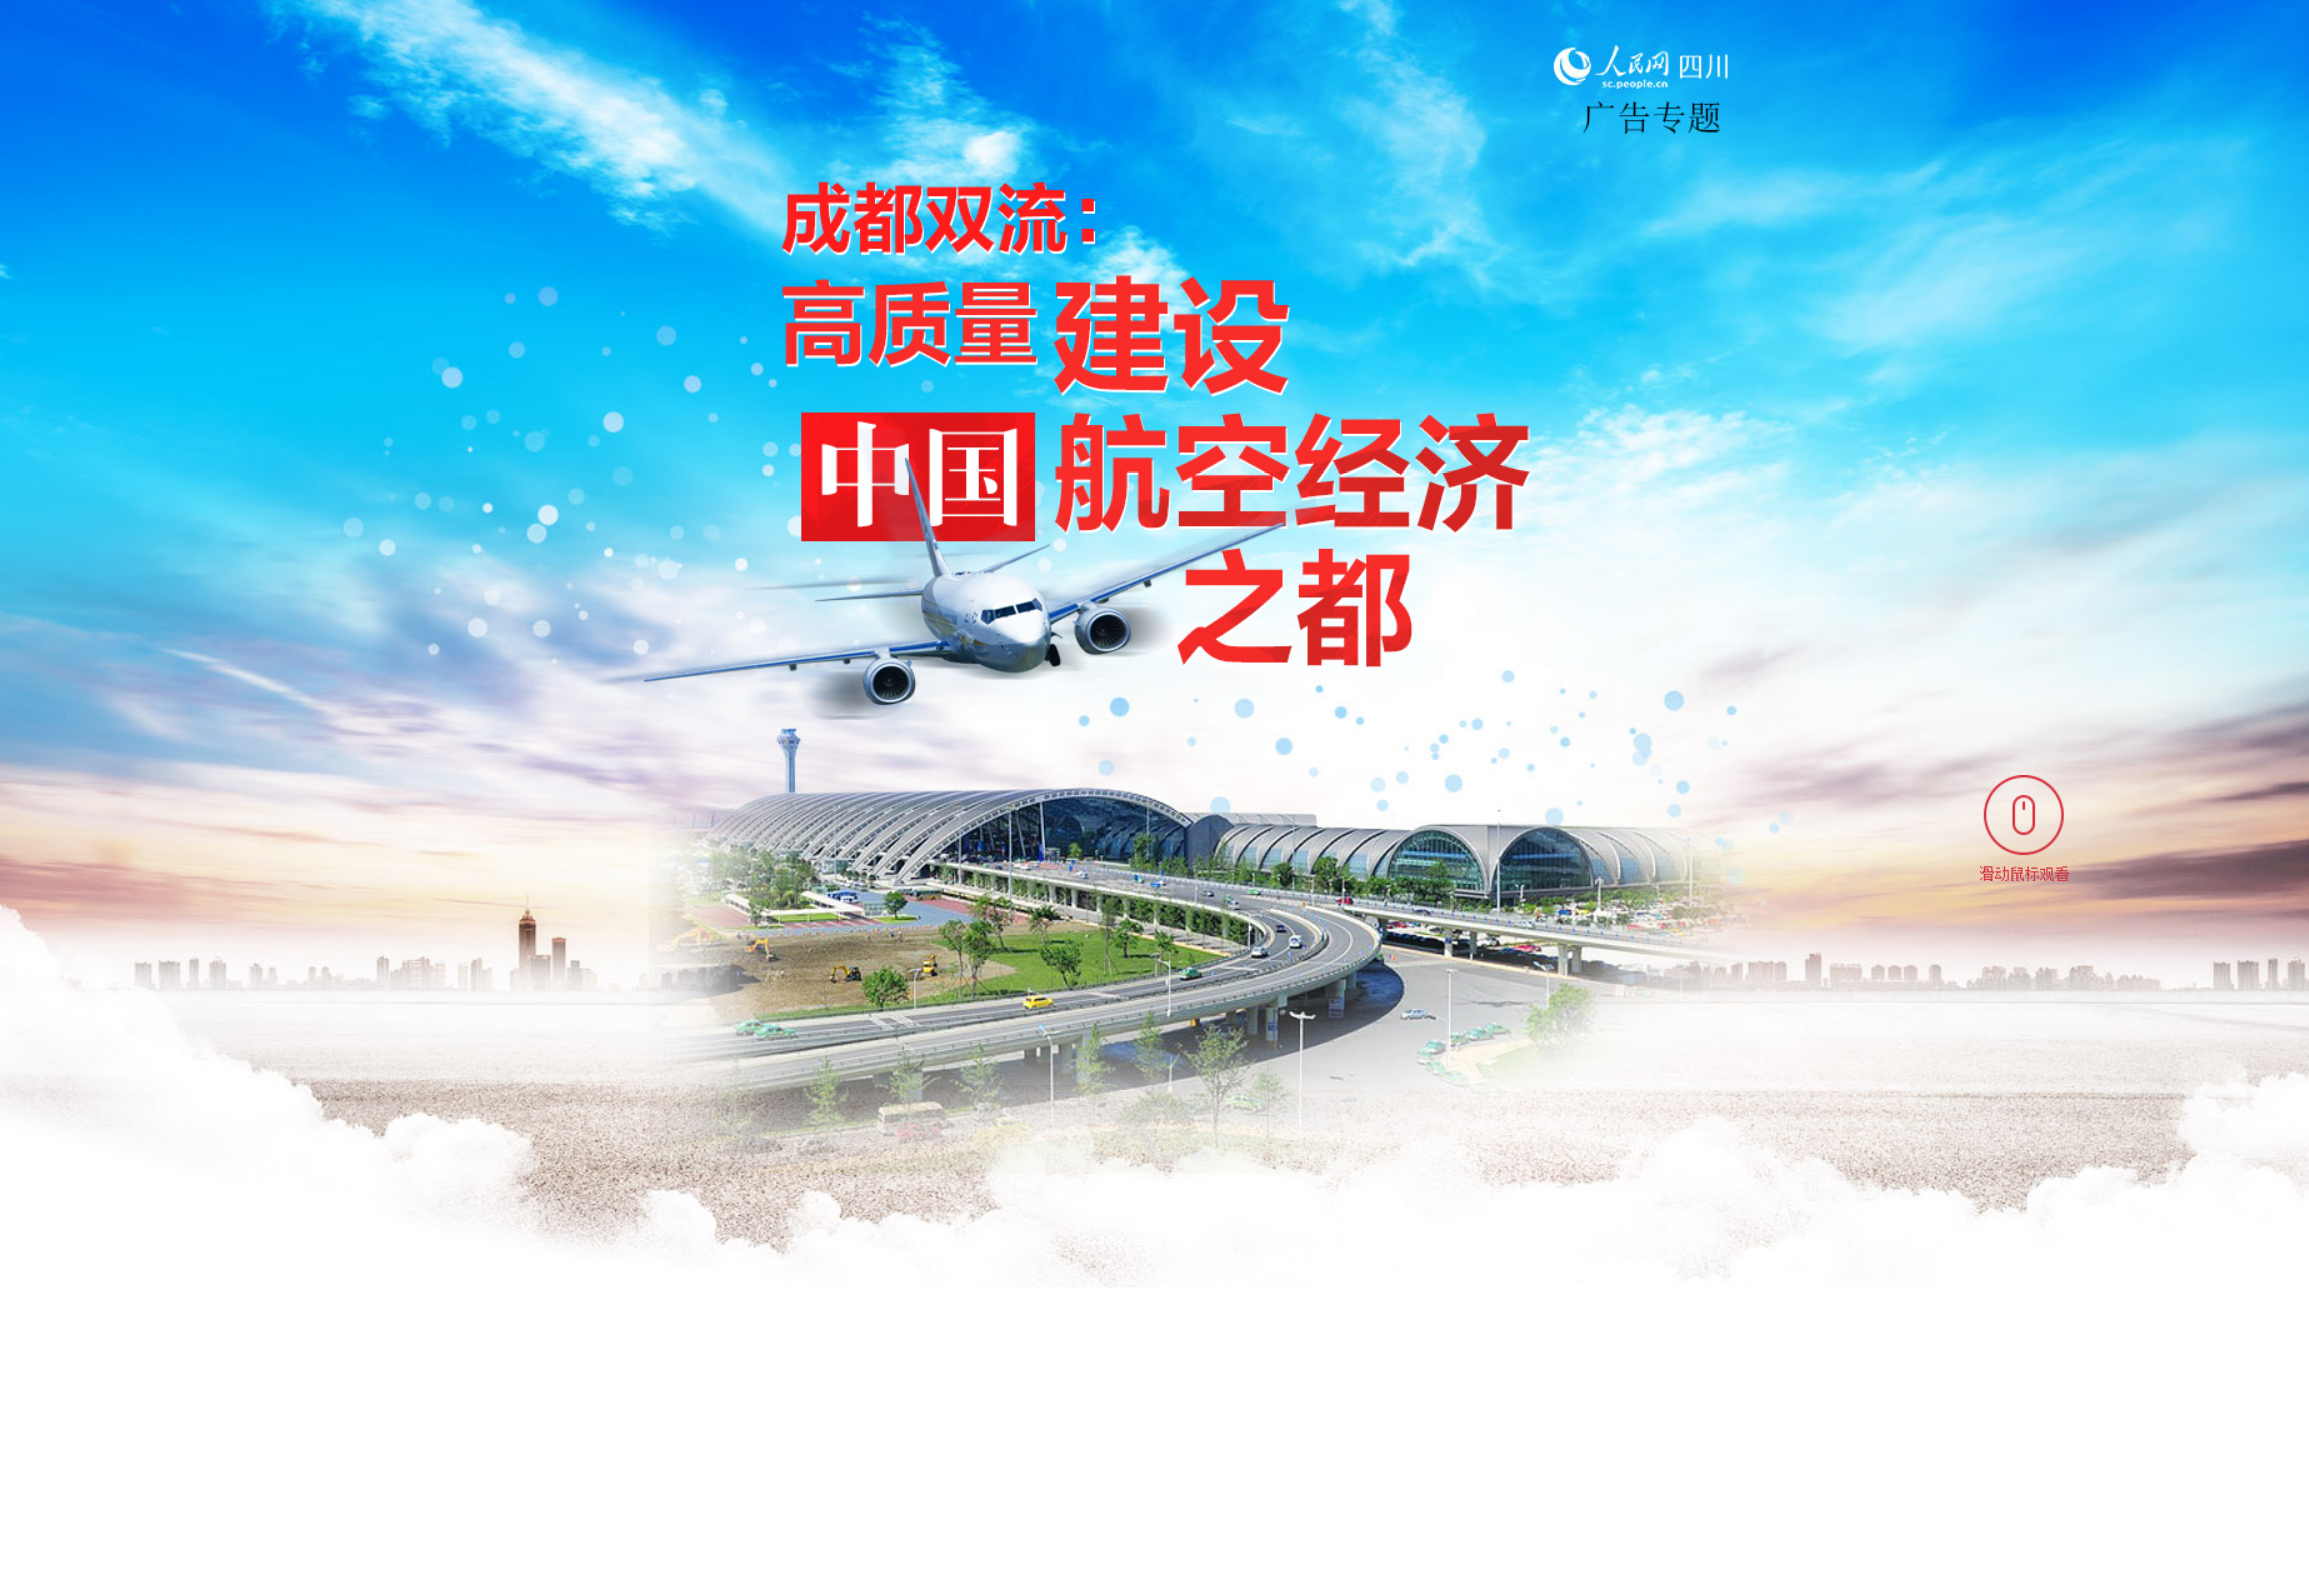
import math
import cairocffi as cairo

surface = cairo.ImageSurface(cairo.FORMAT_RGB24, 2309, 1595)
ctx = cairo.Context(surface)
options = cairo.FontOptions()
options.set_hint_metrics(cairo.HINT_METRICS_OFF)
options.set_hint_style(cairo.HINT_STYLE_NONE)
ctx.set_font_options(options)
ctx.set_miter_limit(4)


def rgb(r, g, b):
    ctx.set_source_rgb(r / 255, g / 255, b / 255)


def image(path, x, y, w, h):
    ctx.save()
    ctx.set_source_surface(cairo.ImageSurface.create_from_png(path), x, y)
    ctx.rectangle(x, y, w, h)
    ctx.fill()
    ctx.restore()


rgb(255, 255, 255)
ctx.paint()
image('image0.png', 0, 0, 2309, 1289)
image('image1.png', 587, 181, 944, 539)
image('image2.png', 1980, 775, 89, 106)
surface.write_to_png('render.png')
